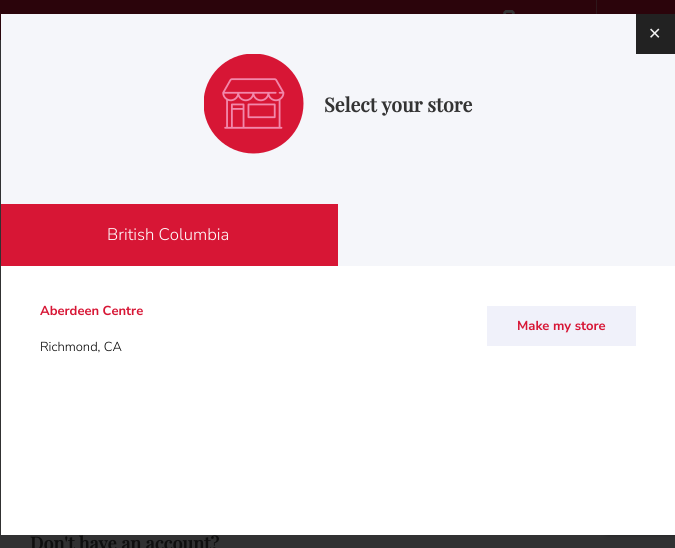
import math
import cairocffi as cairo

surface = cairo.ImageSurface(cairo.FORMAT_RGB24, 675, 548)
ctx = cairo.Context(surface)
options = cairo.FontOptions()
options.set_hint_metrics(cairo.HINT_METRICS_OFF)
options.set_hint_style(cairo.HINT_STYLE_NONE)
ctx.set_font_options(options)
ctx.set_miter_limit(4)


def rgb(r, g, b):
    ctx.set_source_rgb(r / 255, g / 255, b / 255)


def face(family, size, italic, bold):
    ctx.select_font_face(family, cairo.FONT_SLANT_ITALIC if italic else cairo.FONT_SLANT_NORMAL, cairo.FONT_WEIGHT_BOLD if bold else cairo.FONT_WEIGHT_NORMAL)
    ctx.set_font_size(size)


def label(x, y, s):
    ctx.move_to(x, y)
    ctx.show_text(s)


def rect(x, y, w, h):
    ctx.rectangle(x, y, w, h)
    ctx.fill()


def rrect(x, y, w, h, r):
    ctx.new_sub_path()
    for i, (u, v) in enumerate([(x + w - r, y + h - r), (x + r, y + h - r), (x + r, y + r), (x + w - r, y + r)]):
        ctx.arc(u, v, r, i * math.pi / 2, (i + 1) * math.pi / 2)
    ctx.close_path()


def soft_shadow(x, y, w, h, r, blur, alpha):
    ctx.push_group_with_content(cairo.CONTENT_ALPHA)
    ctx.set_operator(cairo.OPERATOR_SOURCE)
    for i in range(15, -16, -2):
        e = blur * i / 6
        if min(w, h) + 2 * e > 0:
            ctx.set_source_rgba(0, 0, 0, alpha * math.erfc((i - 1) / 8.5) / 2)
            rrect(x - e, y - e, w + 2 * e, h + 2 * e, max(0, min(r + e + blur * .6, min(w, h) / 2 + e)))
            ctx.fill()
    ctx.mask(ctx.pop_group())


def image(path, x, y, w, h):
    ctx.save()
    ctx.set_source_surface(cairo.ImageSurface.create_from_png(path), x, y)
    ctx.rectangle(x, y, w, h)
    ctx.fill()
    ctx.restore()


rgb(49, 49, 50)
ctx.paint()
rgb(43, 4, 11)
rect(0, 0, 675, 40)
image('image0.png', 503, 10, 12, 4)
rgb(46, 23, 27)
rect(596, 0, 1, 14)
rgb(26, 26, 26)
soft_shadow(605, 474, 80, 60, 2, 2.5, 1)
rgb(255, 255, 255)
rect(1, 266, 674, 269)
rgb(245, 246, 250)
rect(1, 14, 674, 252)
rgb(34, 34, 34)
rect(636, 14, 39, 40)
face('DejaVu Sans', 16, 0, 0)
rgb(240, 240, 240)
label(648, 39, '✕')
image('image1.png', 204, 54, 100, 100)
face('Playfair Display', 19.5, 0, 1)
rgb(51, 51, 51)
label(324, 112, 'Select your store')
rgb(215, 22, 53)
rect(1, 204, 337, 62)
face('Nunito Sans Light', 16.75, 0, 0)
rgb(255, 255, 255)
label(107, 240, 'British Columbia')
face('Nunito Sans', 13, 0, 1)
rgb(215, 22, 53)
label(40, 315, 'Aberdeen Centre')
face('Nunito Sans Light', 13, 0, 0)
rgb(0, 0, 0)
label(40, 351, 'Richmond, CA')
rgb(240, 241, 250)
rect(487, 306, 149, 40)
face('Nunito Sans', 13, 0, 1)
rgb(215, 22, 53)
label(517, 330, 'Make my store')
face('Playfair Display', 18.1, 0, 1)
rgb(14, 14, 14)
label(30, 550, 'Don\'t have an account?')
surface.write_to_png('render.png')
